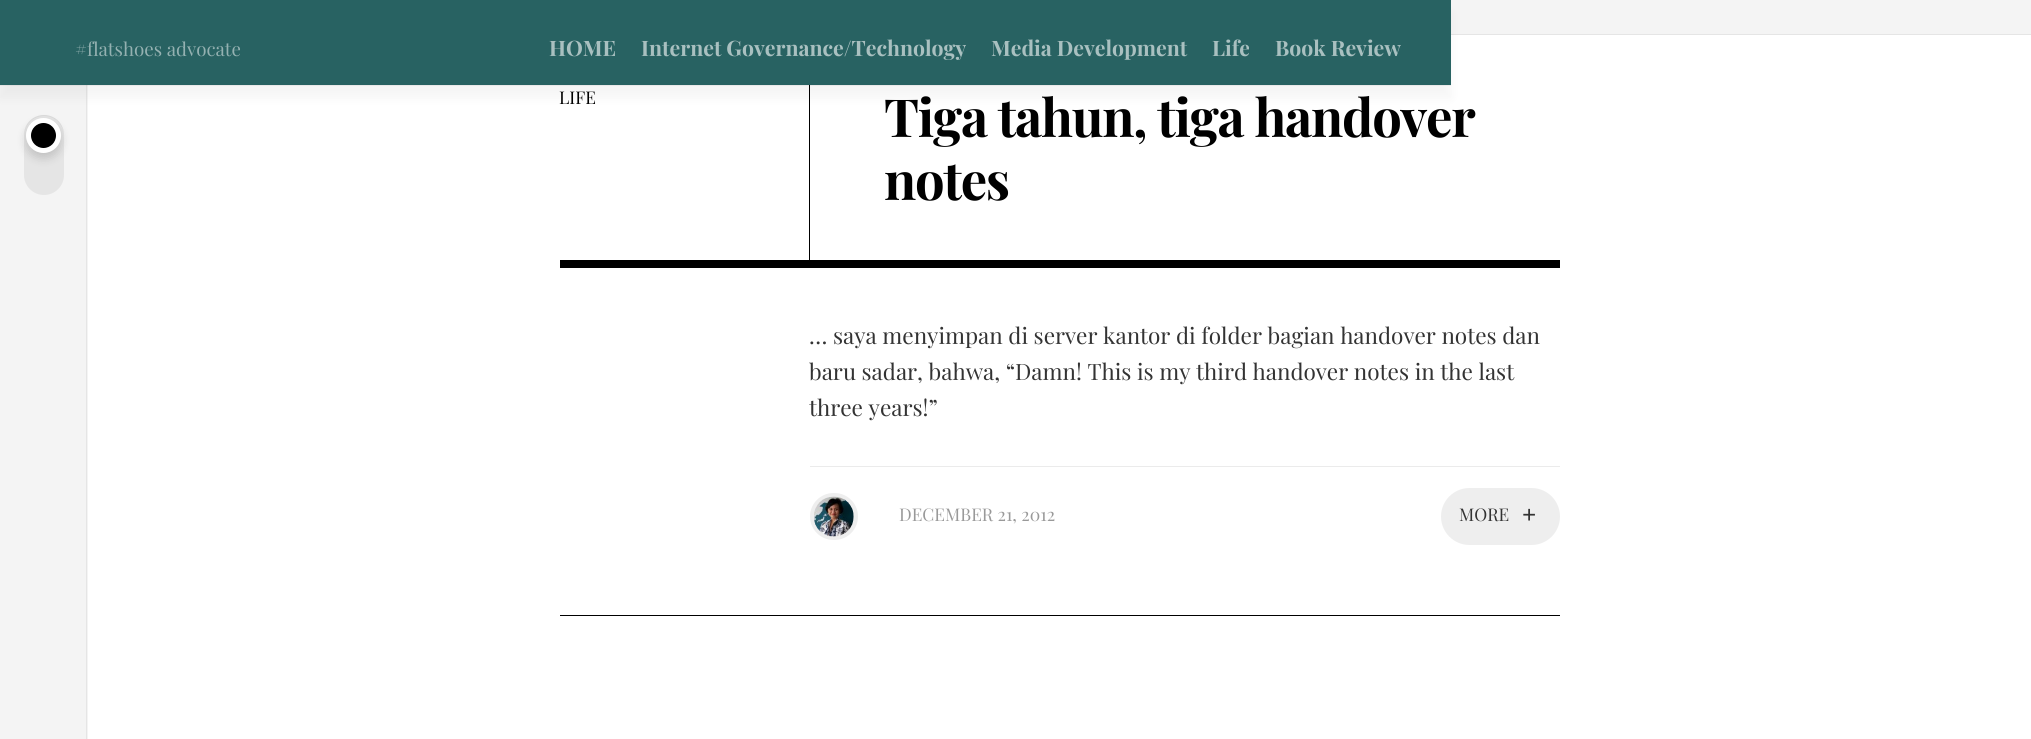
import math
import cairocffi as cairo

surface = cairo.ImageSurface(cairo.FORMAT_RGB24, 2031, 739)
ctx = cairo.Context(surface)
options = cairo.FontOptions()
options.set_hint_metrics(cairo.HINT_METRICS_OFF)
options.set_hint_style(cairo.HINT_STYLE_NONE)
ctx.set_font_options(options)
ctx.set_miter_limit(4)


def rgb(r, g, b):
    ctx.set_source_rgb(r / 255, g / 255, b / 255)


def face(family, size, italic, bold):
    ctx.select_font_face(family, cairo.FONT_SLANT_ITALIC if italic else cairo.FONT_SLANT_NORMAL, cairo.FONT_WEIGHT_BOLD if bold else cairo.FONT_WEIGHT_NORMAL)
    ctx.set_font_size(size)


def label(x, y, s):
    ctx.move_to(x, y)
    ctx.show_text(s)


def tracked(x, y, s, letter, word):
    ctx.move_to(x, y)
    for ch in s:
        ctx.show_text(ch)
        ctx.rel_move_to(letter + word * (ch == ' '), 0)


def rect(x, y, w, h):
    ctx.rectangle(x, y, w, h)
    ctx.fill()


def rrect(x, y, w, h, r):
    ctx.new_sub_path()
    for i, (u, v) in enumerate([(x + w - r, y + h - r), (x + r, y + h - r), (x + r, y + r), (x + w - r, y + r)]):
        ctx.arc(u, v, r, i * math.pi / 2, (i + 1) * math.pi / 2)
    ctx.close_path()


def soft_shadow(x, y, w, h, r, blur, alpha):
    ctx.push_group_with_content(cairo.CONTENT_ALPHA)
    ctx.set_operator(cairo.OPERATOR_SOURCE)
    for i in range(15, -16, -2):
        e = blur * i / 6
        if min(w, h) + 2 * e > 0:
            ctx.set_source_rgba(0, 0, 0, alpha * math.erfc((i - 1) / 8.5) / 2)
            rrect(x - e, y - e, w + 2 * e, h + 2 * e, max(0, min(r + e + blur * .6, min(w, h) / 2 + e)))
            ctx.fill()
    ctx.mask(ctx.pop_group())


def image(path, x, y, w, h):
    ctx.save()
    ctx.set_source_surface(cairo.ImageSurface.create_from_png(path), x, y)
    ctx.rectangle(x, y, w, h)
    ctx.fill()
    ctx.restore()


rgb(255, 255, 255)
ctx.paint()
rgb(242, 242, 242)
rect(88, 85, 1363, 1)
rgb(244, 244, 244)
rect(0, 86, 88, 653)
rgb(232, 232, 232)
rect(0, 85, 88, 1)
rgb(229, 229, 229)
rect(86, 86, 1, 653)
rgb(218, 218, 218)
rect(86, 85, 1, 1)
rgb(229, 229, 229)
rrect(24, 115, 40, 80, 20)
ctx.fill()
ctx.set_source_rgba(0, 0, 0, 0.05)
ctx.new_path()
ctx.move_to(44, 116)
ctx.curve_to(55, 116, 64, 125, 64, 136)
ctx.curve_to(64, 108, 24, 108, 24, 136)
ctx.curve_to(24, 125, 33, 116, 44, 116)
ctx.close_path()
ctx.fill()
rgb(244, 244, 244)
rect(1451, 0, 580, 34)
rgb(229, 229, 229)
rect(1451, 34, 580, 1)
rgb(0, 0, 0)
rect(809, 85, 1, 175)
rgb(0, 0, 0)
soft_shadow(0, 13, 1451, 85, 0, 6, 0.04)
rgb(40, 98, 98)
rect(0, 0, 1451, 85)
face('Playfair Display', 18.75, 0, 0)
rgb(148, 177, 177)
label(75, 56, '#flatshoes advocate')
face('Playfair Display', 21.25, 0, 1)
rgb(169, 192, 192)
label(549, 56, 'HOME')
label(641, 56, 'Internet Governance/Technology')
label(991, 56, 'Media Development')
label(1212, 56, 'Life')
label(1275, 56, 'Book Review')
rgb(0, 0, 0)
soft_shadow(26, 123, 35, 35, 17.5, 5, 0.16)
rgb(0, 0, 0)
ctx.arc(43.5, 135.5, 15, 0, 2 * math.pi)
ctx.fill_preserve()
rgb(255, 255, 255)
ctx.set_line_width(5)
ctx.stroke()
rgb(0, 0, 0)
rect(560, 260, 1000, 8)
face('Playfair Display', 17.5, 0, 0)
label(559, 104, 'LIFE')
face('Playfair Display', 52.5, 0, 1)
tracked(884, 137, 'Tiga tahun, tiga handover', -1.25, 0)
tracked(884, 200, 'notes', -1.25, 0)
rect(560, 615, 1000, 1)
face('Playfair Display', 22.5, 0, 0)
rgb(51, 51, 51)
label(809, 344, '… saya menyimpan di server kantor di folder bagian handover notes dan')
label(809, 380, 'baru sadar, bahwa, “Damn! This is my third handover notes in the last')
label(809, 416, 'three years!”')
rgb(235, 235, 235)
rect(810, 466, 750, 1)
rrect(812, 495, 44, 43, 21.5)
rgb(238, 238, 238)
ctx.set_line_width(4)
ctx.stroke()
image('image0.png', 814, 496, 40, 41)
face('Playfair Display', 17.5, 0, 0)
rgb(153, 153, 153)
label(899, 521, 'DECEMBER 21, 2012')
rgb(238, 238, 238)
rrect(1441, 488, 119, 57, 28.5)
ctx.fill()
rgb(51, 51, 51)
label(1459, 521, 'MORE')
face('Liberation Serif', 25, 0, 1)
label(1522, 523, '+')
surface.write_to_png('render.png')
